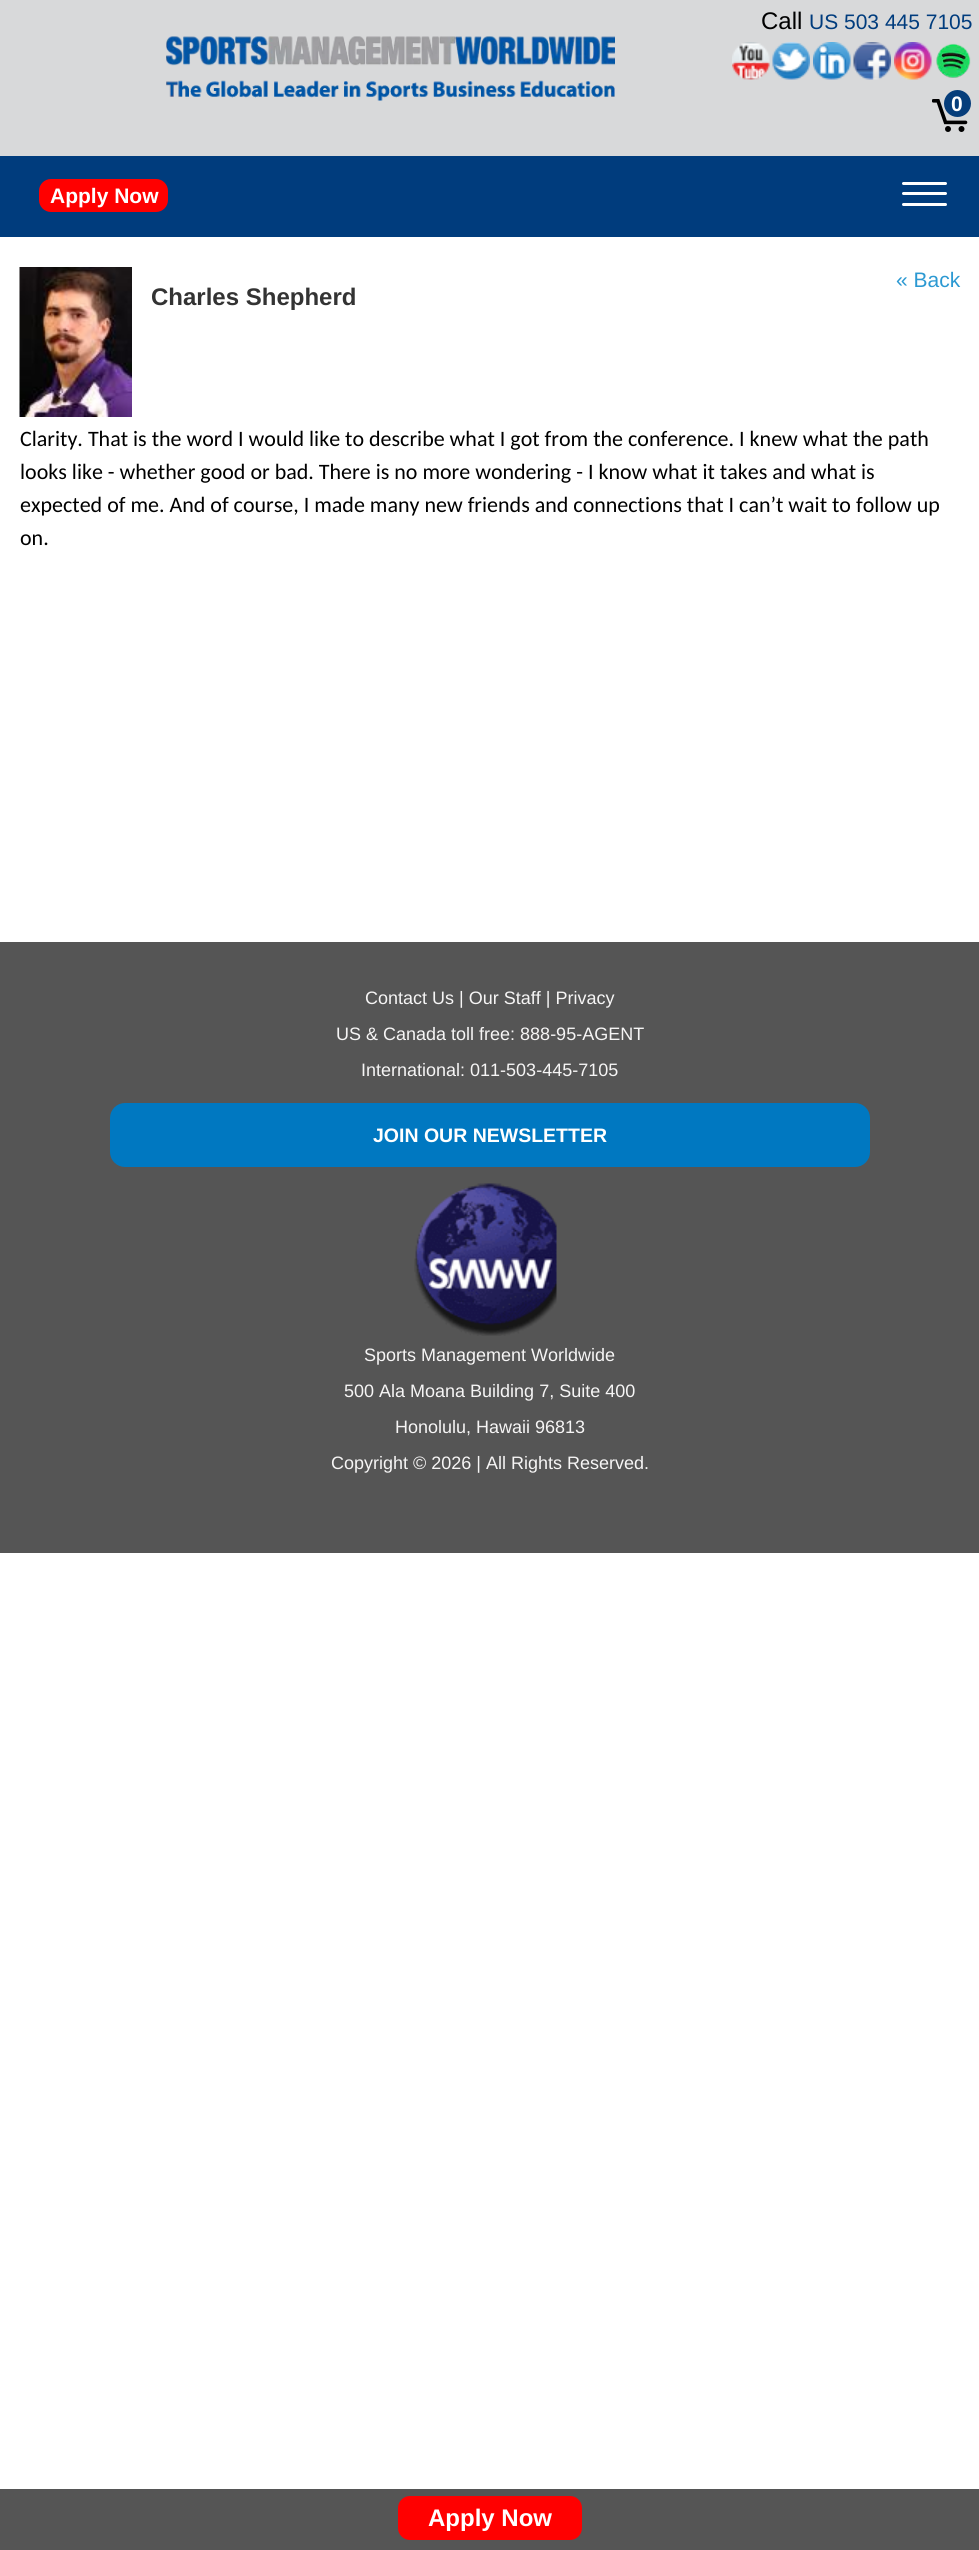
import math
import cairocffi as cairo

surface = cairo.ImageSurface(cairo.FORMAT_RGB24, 979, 2550)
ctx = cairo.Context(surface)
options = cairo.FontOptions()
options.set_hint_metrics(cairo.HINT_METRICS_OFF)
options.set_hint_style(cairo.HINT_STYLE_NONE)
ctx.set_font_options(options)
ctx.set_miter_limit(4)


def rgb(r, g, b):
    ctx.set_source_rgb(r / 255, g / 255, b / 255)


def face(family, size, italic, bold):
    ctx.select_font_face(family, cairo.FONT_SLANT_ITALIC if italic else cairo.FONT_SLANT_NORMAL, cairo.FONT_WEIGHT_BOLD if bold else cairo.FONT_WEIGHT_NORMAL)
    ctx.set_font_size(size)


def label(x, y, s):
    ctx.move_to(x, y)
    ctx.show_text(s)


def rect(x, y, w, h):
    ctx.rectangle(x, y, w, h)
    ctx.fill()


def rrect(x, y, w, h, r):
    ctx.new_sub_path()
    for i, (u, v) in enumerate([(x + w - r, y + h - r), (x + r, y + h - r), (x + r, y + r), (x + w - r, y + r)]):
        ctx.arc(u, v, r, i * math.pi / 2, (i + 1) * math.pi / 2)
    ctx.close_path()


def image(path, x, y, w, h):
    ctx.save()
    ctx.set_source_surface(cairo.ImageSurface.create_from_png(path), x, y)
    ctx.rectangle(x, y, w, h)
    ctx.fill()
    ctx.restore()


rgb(255, 255, 255)
ctx.paint()
rgb(216, 217, 218)
rect(0, 0, 979, 156)
image('image0.png', 166, 36, 449, 65)
face('Liberation Sans', 24, 0, 0)
rgb(0, 0, 0)
label(761, 29, 'Call')
face('Liberation Sans', 21, 0, 0)
rgb(0, 60, 125)
label(809, 29, 'US 503 445 7105')
image('image1.png', 732, 42, 38, 38)
image('image2.png', 772, 42, 38, 38)
image('image3.png', 813, 42, 38, 38)
image('image4.png', 853, 42, 38, 38)
image('image5.png', 894, 42, 38, 38)
image('image6.png', 936, 43, 35, 35)
image('image7.png', 932, 99, 36, 33)
rgb(6, 62, 123)
ctx.arc(957.5, 103.5, 13.5, 0, 2 * math.pi)
ctx.fill()
face('Liberation Sans', 21, 0, 1)
rgb(255, 255, 255)
label(951, 111, '0')
rgb(0, 60, 125)
rect(0, 156, 979, 81)
rgb(255, 0, 0)
rrect(39, 179, 129, 33, 12)
ctx.fill()
rgb(255, 255, 255)
label(50, 203, 'Apply Now')
rrect(902, 192, 45, 3, 1.5)
ctx.fill()
rrect(902, 182, 45, 3, 1.5)
ctx.fill()
rrect(902, 203, 45, 3, 1.5)
ctx.fill()
image('image8.png', 19, 267, 113, 150)
face('Liberation Sans', 21, 0, 0)
rgb(44, 153, 210)
label(896, 287, '« Back')
face('Liberation Sans', 24, 0, 1)
rgb(51, 51, 51)
label(151, 305, 'Charles Shepherd')
face('Carlito', 22, 0, 0)
rgb(0, 0, 0)
label(20, 446, 'Clarity. That is the word I would like to describe what I got from the conference. I knew what the path')
label(20, 479, 'looks like - whether good or bad. There is no more wondering - I know what it takes and what is')
label(20, 512, 'expected of me. And of course, I made many new friends and connections that I can’t wait to follow up')
label(20, 545, 'on.')
rgb(85, 85, 85)
rect(0, 942, 979, 611)
face('Liberation Sans', 18, 0, 0)
rgb(246, 245, 245)
label(365, 1004, 'Contact Us | Our Staff | Privacy')
label(336, 1040, 'US & Canada toll free: 888-95-AGENT')
label(361, 1076, 'International: 011-503-445-7105')
rgb(0, 120, 193)
rrect(111, 1104, 758, 62, 14)
ctx.fill_preserve()
ctx.stroke()
face('Liberation Sans', 19.5, 0, 1)
rgb(255, 255, 255)
label(373, 1142, 'JOIN OUR NEWSLETTER')
image('image9.png', 414, 1183, 143, 153)
face('Liberation Sans', 18, 0, 0)
rgb(246, 245, 245)
label(364, 1361, 'Sports Management Worldwide')
label(344, 1397, '500 Ala Moana Building 7, Suite 400')
label(395, 1433, 'Honolulu, Hawaii 96813')
label(331, 1469, 'Copyright © 2026 | All Rights Reserved.')
rgb(85, 85, 85)
rect(0, 2489, 979, 61)
rgb(255, 0, 0)
rrect(398, 2496, 184, 44, 12)
ctx.fill()
face('Liberation Sans', 24, 0, 1)
rgb(255, 255, 255)
label(428, 2526, 'Apply Now')
surface.write_to_png('render.png')
